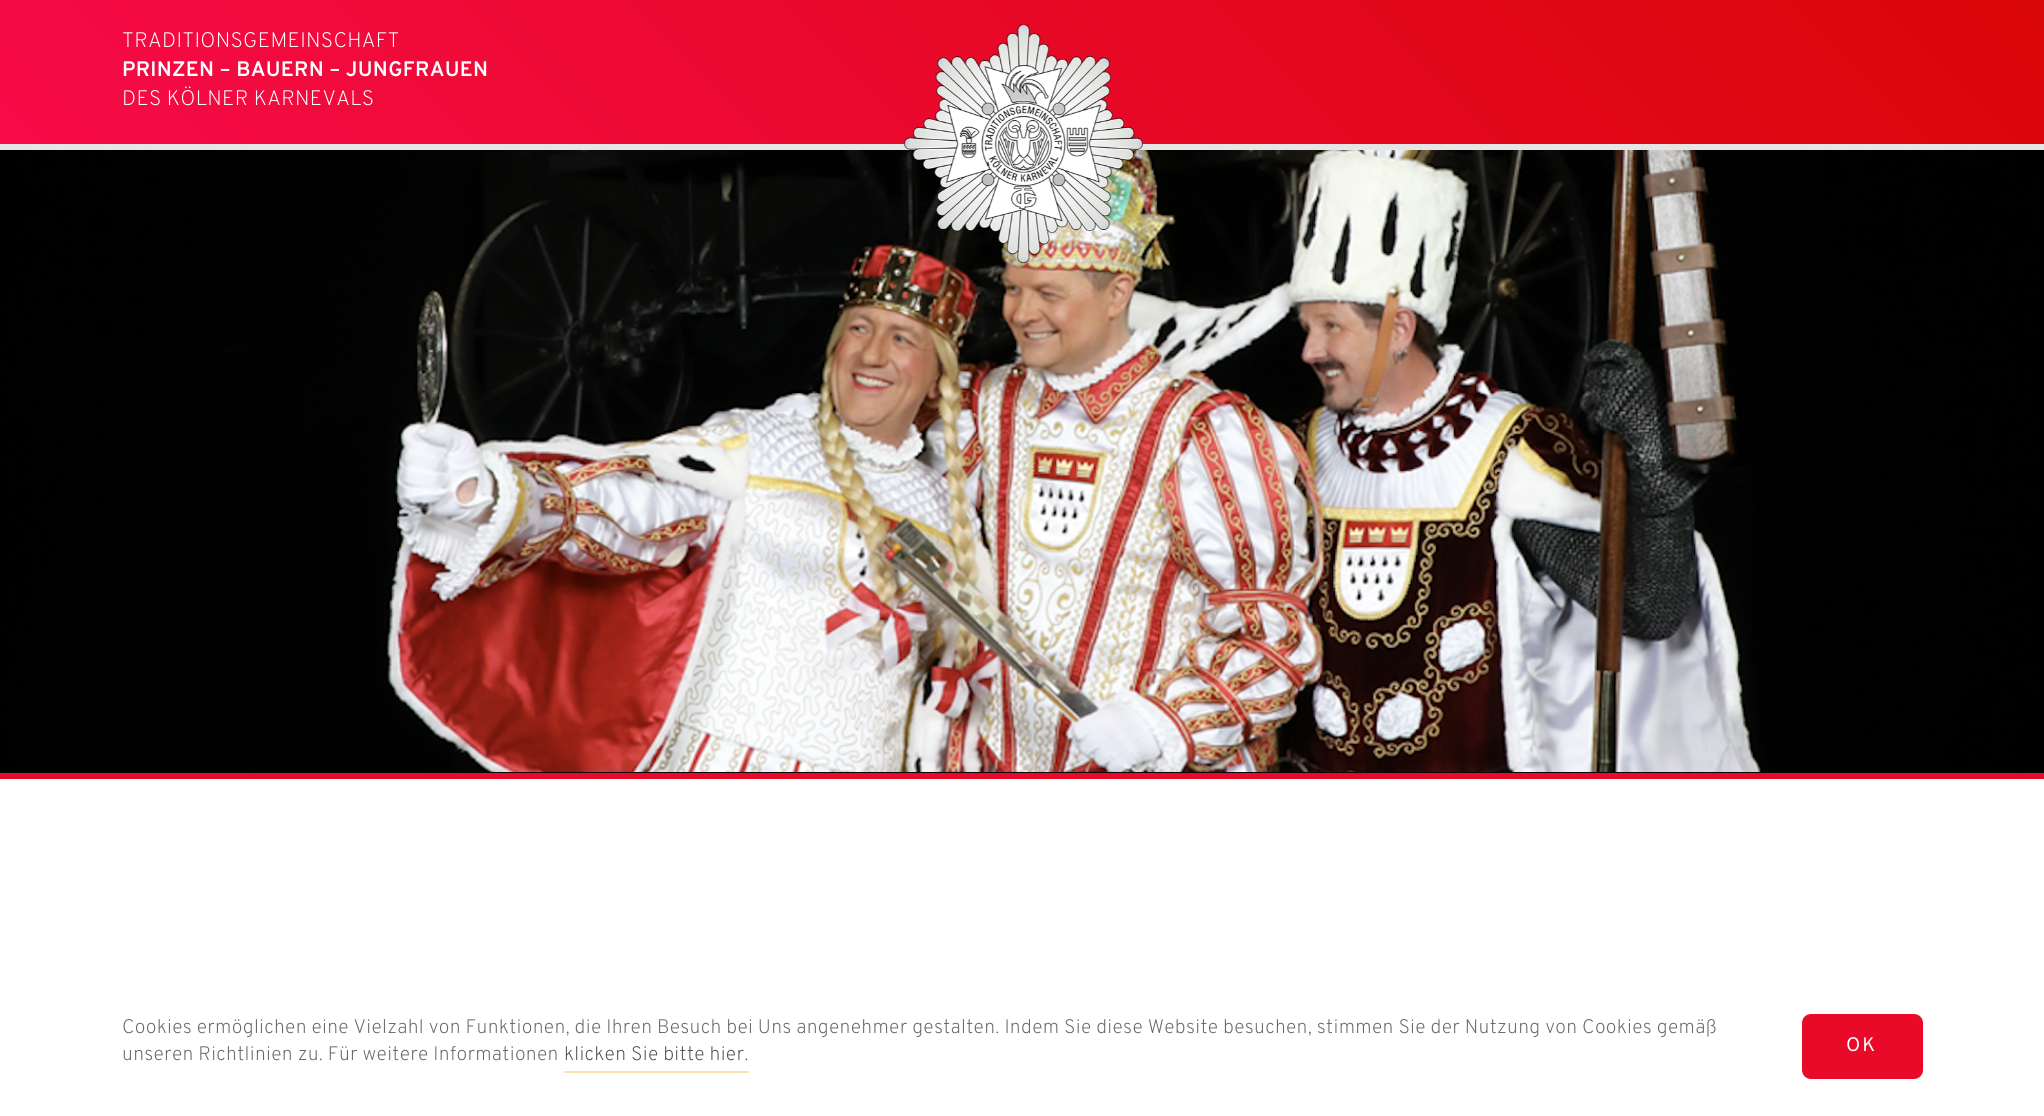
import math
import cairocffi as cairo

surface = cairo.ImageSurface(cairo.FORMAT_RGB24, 2044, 1116)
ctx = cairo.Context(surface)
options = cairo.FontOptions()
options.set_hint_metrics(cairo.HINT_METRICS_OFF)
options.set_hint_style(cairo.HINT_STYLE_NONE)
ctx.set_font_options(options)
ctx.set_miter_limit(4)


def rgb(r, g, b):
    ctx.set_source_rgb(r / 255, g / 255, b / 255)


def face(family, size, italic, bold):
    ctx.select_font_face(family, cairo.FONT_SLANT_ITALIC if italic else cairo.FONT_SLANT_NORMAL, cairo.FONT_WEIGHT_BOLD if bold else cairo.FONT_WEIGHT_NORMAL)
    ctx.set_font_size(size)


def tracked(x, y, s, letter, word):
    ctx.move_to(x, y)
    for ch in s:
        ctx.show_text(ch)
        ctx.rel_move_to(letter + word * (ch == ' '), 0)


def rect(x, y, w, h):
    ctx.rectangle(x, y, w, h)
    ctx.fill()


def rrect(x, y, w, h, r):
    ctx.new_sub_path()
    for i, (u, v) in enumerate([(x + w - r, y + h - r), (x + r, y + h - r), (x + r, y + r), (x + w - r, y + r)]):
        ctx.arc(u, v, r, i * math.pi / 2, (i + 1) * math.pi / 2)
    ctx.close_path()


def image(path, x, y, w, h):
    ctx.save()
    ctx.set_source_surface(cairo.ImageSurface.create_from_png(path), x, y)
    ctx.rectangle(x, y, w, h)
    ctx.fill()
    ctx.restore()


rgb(255, 255, 255)
ctx.paint()
gradient = cairo.LinearGradient(475, 619, 1569, -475)
gradient.add_color_stop_rgba(0, 0.969, 0.043, 0.286, 1)
gradient.add_color_stop_rgba(1, 0.851, 0.024, 0.024, 1)
ctx.set_source(gradient)
rect(0, 0, 2044, 144)
rgb(230, 230, 230)
rect(0, 144, 2044, 6)
face('Overpass ExtraLight', 21, 0, 0)
rgb(255, 255, 255)
tracked(122, 47, 'TRADITIONSGEMEINSCHAFT', 0.3, 0)
face('Overpass SemiBold', 21, 0, 0)
tracked(122, 76, 'PRINZEN – BAUERN – JUNGFRAUEN', 0.3, 0)
face('Overpass ExtraLight', 21, 0, 0)
tracked(122, 105, 'DES KÖLNER KARNEVALS', 0.3, 0)
image('image1.png', 0, 150, 2044, 622)
image('image0.png', 903, 24, 240, 240)
rgb(10, 10, 10)
rect(0, 772, 2044, 1)
rgb(233, 9, 41)
rect(0, 773, 2044, 6)
face('Overpass ExtraLight', 19.5, 0, 0)
rgb(100, 100, 100)
tracked(122, 1033, 'Cookies ermöglichen eine Vielzahl von Funktionen, die Ihren Besuch bei Uns angenehmer gestalten. Indem Sie diese Website besuchen, stimmen Sie der Nutzung von Cookies gemäß', 0.3, 0)
tracked(122, 1060, 'unseren Richtlinien zu. Für weitere Informationen', 0.3, 0)
rgb(79, 79, 79)
tracked(564, 1060, 'klicken Sie bitte hier.', 0.3, 0)
rgb(254, 226, 182)
rect(564, 1071, 185, 2)
rgb(233, 9, 41)
rrect(1802, 1014, 121, 65, 9)
ctx.fill()
face('Overpass', 19.5, 0, 0)
rgb(255, 255, 255)
tracked(1846, 1051, 'OK', 2, 0)
surface.write_to_png('render.png')
